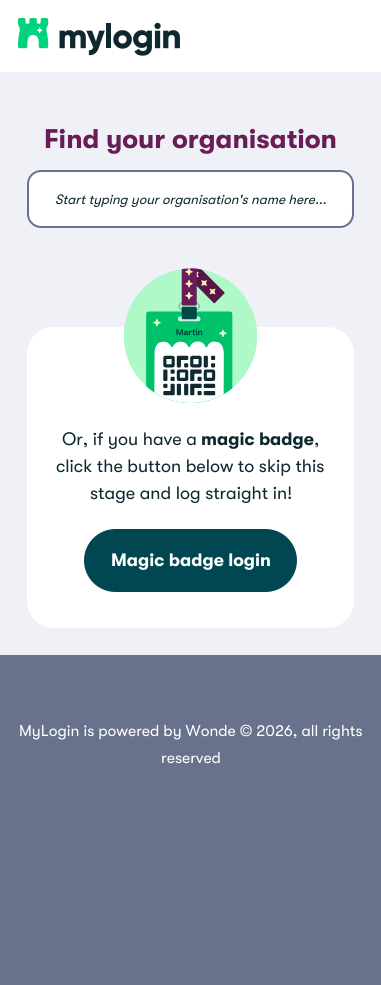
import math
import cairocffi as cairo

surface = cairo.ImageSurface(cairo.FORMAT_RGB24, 381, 985)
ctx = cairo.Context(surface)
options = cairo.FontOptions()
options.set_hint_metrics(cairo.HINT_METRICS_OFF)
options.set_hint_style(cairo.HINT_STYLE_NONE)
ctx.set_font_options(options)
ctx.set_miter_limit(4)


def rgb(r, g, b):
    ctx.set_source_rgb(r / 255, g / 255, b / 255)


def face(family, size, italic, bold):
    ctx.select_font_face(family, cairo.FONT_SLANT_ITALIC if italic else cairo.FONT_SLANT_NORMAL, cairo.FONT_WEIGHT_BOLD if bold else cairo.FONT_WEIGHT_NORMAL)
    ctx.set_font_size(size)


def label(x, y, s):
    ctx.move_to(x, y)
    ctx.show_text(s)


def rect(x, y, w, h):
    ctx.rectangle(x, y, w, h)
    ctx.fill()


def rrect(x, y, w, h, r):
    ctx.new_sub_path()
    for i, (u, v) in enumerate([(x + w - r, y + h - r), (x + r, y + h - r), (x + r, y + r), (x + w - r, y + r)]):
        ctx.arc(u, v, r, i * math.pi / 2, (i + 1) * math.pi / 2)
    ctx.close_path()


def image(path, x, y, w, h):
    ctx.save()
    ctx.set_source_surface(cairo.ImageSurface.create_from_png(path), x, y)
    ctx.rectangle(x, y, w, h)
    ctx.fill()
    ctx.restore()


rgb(105, 114, 140)
ctx.paint()
rgb(239, 241, 247)
rect(0, 72, 381, 583)
rgb(255, 255, 255)
rect(0, 0, 381, 72)
image('image0.png', 18, 18, 162, 38)
face('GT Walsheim', 27, 0, 1)
rgb(105, 28, 86)
label(44, 148, 'Find your organisation')
rgb(255, 255, 255)
rrect(28, 171, 325, 56, 13)
ctx.fill_preserve()
rgb(103, 114, 142)
ctx.stroke()
face('GT Walsheim', 13.5, 1, 0)
rgb(15, 40, 48)
label(55, 204, 'Start typing your organisation\'s name here...')
rgb(255, 255, 255)
rrect(27, 327, 327, 301, 27)
ctx.fill()
image('image1.png', 124, 268, 134, 135)
face('GT Walsheim', 18, 0, 0)
rgb(15, 40, 48)
label(62, 445, 'Or, if you have a')
face('GT Walsheim', 18, 0, 1)
label(201, 445, 'magic badge')
face('GT Walsheim', 18, 0, 0)
label(314, 445, ',')
label(56, 472, 'click the button below to skip this')
label(90, 499, 'stage and log straight in!')
rgb(1, 71, 81)
rrect(84, 529, 213, 63, 31.5)
ctx.fill()
face('GT Walsheim', 18, 0, 1)
rgb(255, 255, 255)
label(111, 566, 'Magic badge login')
face('GT Walsheim', 15.75, 0, 0)
label(19, 736, 'MyLogin is powered by Wonde © 2026, all rights')
label(161, 763, 'reserved')
surface.write_to_png('render.png')
